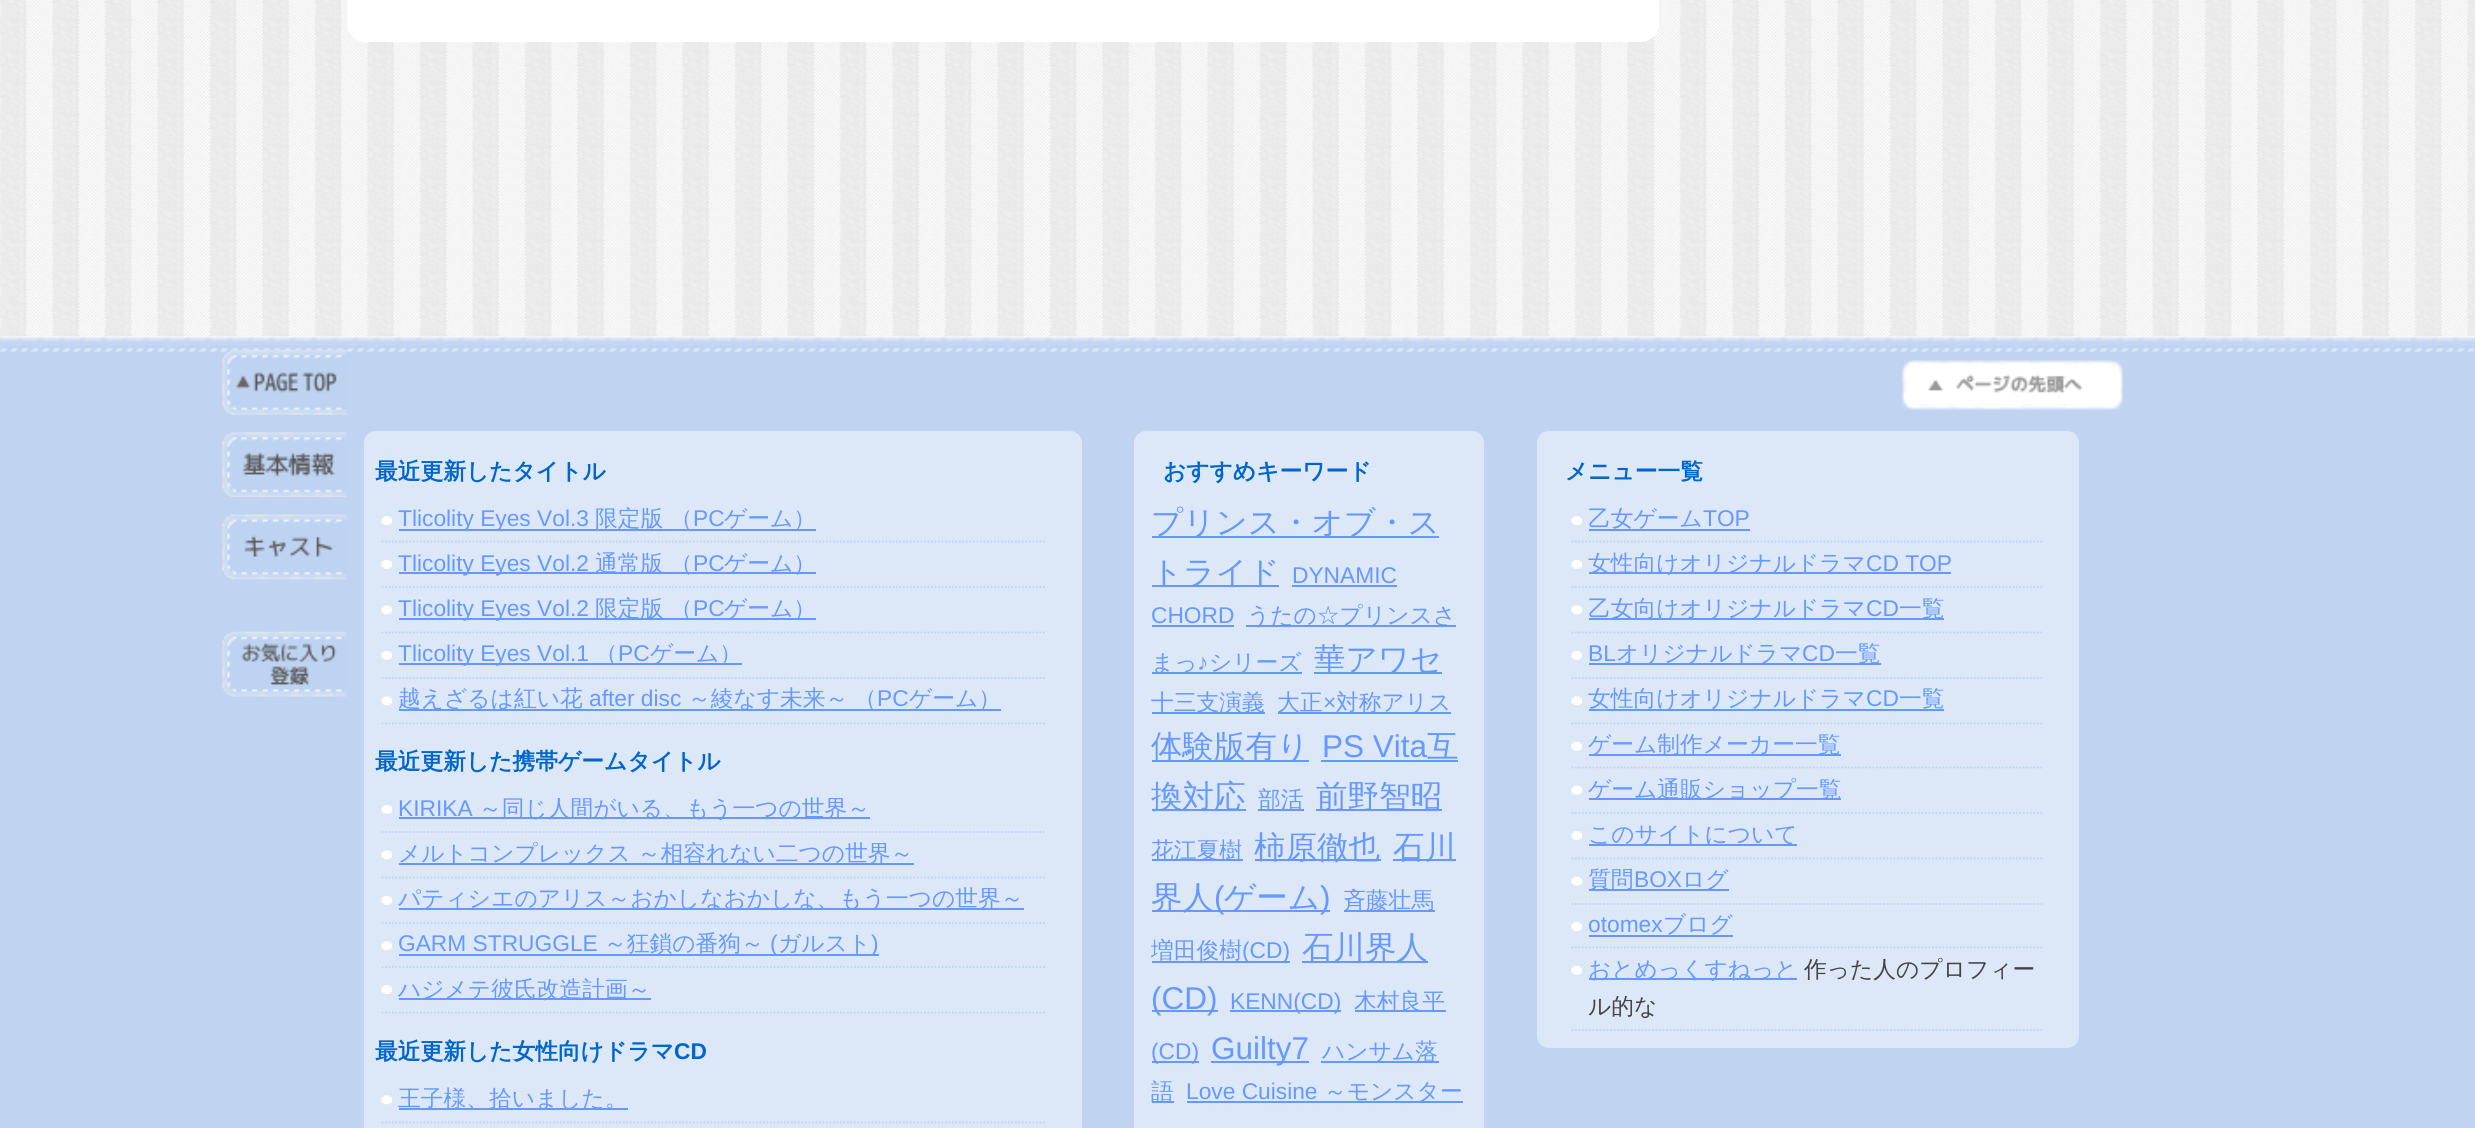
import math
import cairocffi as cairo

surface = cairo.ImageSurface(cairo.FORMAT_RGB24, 2475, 1128)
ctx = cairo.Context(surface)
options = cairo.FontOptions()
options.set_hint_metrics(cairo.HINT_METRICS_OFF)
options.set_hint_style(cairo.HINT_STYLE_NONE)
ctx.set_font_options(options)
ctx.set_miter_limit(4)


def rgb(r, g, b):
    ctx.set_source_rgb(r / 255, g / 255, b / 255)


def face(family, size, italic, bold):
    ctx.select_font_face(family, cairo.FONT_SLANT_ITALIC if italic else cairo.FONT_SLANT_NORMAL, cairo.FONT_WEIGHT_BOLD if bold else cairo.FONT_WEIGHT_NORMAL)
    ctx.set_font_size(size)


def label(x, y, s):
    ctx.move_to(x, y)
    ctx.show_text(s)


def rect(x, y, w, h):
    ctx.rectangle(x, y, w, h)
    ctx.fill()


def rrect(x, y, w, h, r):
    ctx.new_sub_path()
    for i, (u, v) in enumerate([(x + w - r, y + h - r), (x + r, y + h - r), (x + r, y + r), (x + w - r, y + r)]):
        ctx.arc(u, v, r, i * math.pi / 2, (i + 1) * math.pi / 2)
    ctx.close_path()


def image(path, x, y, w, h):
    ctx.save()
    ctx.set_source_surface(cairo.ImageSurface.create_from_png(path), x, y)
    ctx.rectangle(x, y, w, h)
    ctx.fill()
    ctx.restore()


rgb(255, 255, 255)
ctx.paint()
image('image0.png', 0, 0, 2475, 337)
rgb(255, 255, 255)
rrect(347, -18, 1312, 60, 18)
ctx.fill()
image('image5.png', 0, 336, 2475, 792)
image('image1.png', 222, 350, 125, 65)
image('image2.png', 222, 432, 125, 65)
image('image3.png', 222, 514, 125, 66)
image('image4.png', 222, 631, 125, 66)
image('image6.png', 1902, 360, 221, 50)
rgb(220, 231, 248)
rrect(364, 431, 718, 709, 12)
ctx.fill()
face('WenQuanYi Zen Hei', 22.75, 0, 1)
rgb(0, 102, 204)
label(375, 479, '最近更新したタイトル')
image('image7.png', 381, 516, 11, 9)
ctx.new_path()
ctx.move_to(381.5, 541.5)
ctx.line_to(1046.5, 541.5)
rgb(192, 212, 242)
ctx.set_line_width(1.8)
ctx.set_dash([1.75, 1.75])
ctx.stroke()
rgb(102, 153, 255)
rect(399, 529, 417, 2)
face('Liberation Sans', 22.75, 0, 0)
label(398, 526, 'Tlicolity Eyes Vol.3')
face('WenQuanYi Zen Hei Medium', 22.75, 0, 0)
label(595, 526, '限定版')
label(670, 526, '（')
face('Liberation Sans', 22.75, 0, 0)
label(693, 526, 'PC')
face('WenQuanYi Zen Hei Medium', 22.75, 0, 0)
label(724, 526, 'ゲーム）')
image('image8.png', 381, 560, 11, 9)
ctx.new_path()
ctx.move_to(381.5, 587)
ctx.line_to(1046.5, 587)
rgb(192, 212, 242)
ctx.stroke()
rgb(102, 153, 255)
rect(399, 572, 417, 2)
face('Liberation Sans', 22.75, 0, 0)
label(398, 571, 'Tlicolity Eyes Vol.2')
face('WenQuanYi Zen Hei Medium', 22.75, 0, 0)
label(595, 571, '通常版')
label(670, 571, '（')
face('Liberation Sans', 22.75, 0, 0)
label(693, 571, 'PC')
face('WenQuanYi Zen Hei Medium', 22.75, 0, 0)
label(724, 571, 'ゲーム）')
image('image9.png', 381, 605, 11, 10)
ctx.new_path()
ctx.move_to(381.5, 632.5)
ctx.line_to(1046.5, 632.5)
rgb(192, 212, 242)
ctx.stroke()
rgb(102, 153, 255)
rect(399, 618, 417, 2)
face('Liberation Sans', 22.75, 0, 0)
label(398, 616, 'Tlicolity Eyes Vol.2')
face('WenQuanYi Zen Hei Medium', 22.75, 0, 0)
label(595, 616, '限定版')
label(670, 616, '（')
face('Liberation Sans', 22.75, 0, 0)
label(693, 616, 'PC')
face('WenQuanYi Zen Hei Medium', 22.75, 0, 0)
label(724, 616, 'ゲーム）')
image('image8.png', 381, 651, 11, 9)
ctx.new_path()
ctx.move_to(381.5, 678)
ctx.line_to(1046.5, 678)
rgb(192, 212, 242)
ctx.stroke()
rgb(102, 153, 255)
rect(399, 663, 343, 2)
face('Liberation Sans', 22.75, 0, 0)
label(398, 661, 'Tlicolity Eyes Vol.1')
face('WenQuanYi Zen Hei Medium', 22.75, 0, 0)
label(595, 661, '（')
face('Liberation Sans', 22.75, 0, 0)
label(618, 661, 'PC')
face('WenQuanYi Zen Hei Medium', 22.75, 0, 0)
label(650, 661, 'ゲーム）')
image('image9.png', 381, 696, 11, 10)
ctx.new_path()
ctx.move_to(381.5, 723.5)
ctx.line_to(1046.5, 723.5)
rgb(192, 212, 242)
ctx.stroke()
rgb(102, 153, 255)
rect(399, 709, 602, 2)
label(398, 706, '越えざるは紅い花')
face('Liberation Sans', 22.75, 0, 0)
label(589, 706, 'after disc')
face('WenQuanYi Zen Hei Medium', 22.75, 0, 0)
label(688, 706, '～綾なす未来～')
label(854, 706, '（')
face('Liberation Sans', 22.75, 0, 0)
label(877, 706, 'PC')
face('WenQuanYi Zen Hei Medium', 22.75, 0, 0)
label(909, 706, 'ゲーム）')
face('WenQuanYi Zen Hei', 22.75, 0, 1)
rgb(0, 102, 204)
label(375, 769, '最近更新した携帯ゲームタイトル')
image('image8.png', 381, 805, 11, 9)
ctx.new_path()
ctx.move_to(381.5, 832)
ctx.line_to(1046.5, 832)
rgb(192, 212, 242)
ctx.stroke()
face('Liberation Sans', 22.75, 0, 0)
rgb(102, 153, 255)
label(398, 816, 'KIRIKA')
rect(399, 817, 471, 2)
face('WenQuanYi Zen Hei Medium', 22.75, 0, 0)
label(479, 816, '～同じ人間がいる、もう一つの世界～')
image('image9.png', 381, 850, 11, 10)
ctx.new_path()
ctx.move_to(381.5, 877.5)
ctx.line_to(1046.5, 877.5)
rgb(192, 212, 242)
ctx.stroke()
rgb(102, 153, 255)
rect(399, 863, 515, 2)
label(398, 861, 'メルトコンプレックス ～相容れない二つの世界～')
image('image8.png', 381, 896, 11, 9)
ctx.new_path()
ctx.move_to(381.5, 923)
ctx.line_to(1046.5, 923)
rgb(192, 212, 242)
ctx.stroke()
rgb(102, 153, 255)
rect(399, 908, 625, 2)
label(398, 906, 'パティシエのアリス～おかしなおかしな、もう一つの世界～')
image('image9.png', 381, 941, 11, 10)
ctx.new_path()
ctx.move_to(381.5, 967)
ctx.line_to(1046.5, 967)
rgb(192, 212, 242)
ctx.stroke()
face('Liberation Sans', 22.75, 0, 0)
rgb(102, 153, 255)
label(398, 951, 'GARM STRUGGLE')
rect(399, 954, 480, 2)
face('WenQuanYi Zen Hei Medium', 22.75, 0, 0)
label(604, 951, '～狂鎖の番狗～')
face('Liberation Sans', 22.75, 0, 0)
label(770, 951, '(')
face('WenQuanYi Zen Hei Medium', 22.75, 0, 0)
label(778, 951, 'ガルスト')
face('Liberation Sans', 22.75, 0, 0)
label(871, 951, ')')
image('image7.png', 381, 985, 11, 9)
ctx.new_path()
ctx.move_to(381.5, 1012.5)
ctx.line_to(1046.5, 1012.5)
rgb(192, 212, 242)
ctx.stroke()
rgb(102, 153, 255)
rect(399, 998, 252, 2)
face('WenQuanYi Zen Hei Medium', 22.75, 0, 0)
label(398, 997, 'ハジメテ彼氏改造計画～')
face('WenQuanYi Zen Hei', 22.75, 0, 1)
rgb(0, 102, 204)
label(375, 1059, '最近更新した女性向けドラマ')
face('Liberation Sans', 22.75, 0, 1)
label(674, 1059, 'CD')
image('image9.png', 381, 1095, 11, 10)
ctx.new_path()
ctx.move_to(381.5, 1122.5)
ctx.line_to(1046.5, 1122.5)
rgb(192, 212, 242)
ctx.stroke()
rgb(102, 153, 255)
rect(399, 1108, 229, 2)
face('WenQuanYi Zen Hei Medium', 22.75, 0, 0)
label(398, 1106, '王子様、拾いました。')
rgb(220, 231, 248)
rrect(1134, 431, 350, 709, 12)
ctx.fill()
face('WenQuanYi Zen Hei', 22.75, 0, 1)
rgb(0, 102, 204)
label(1163, 479, 'おすすめキーワード')
rgb(102, 153, 255)
rect(1152, 536, 287, 2)
face('WenQuanYi Zen Hei Medium', 31.5, 0, 0)
label(1151, 533, 'プリンス・オブ・ス')
rect(1152, 585, 127, 2)
label(1151, 583, 'トライド')
face('Liberation Sans', 22.75, 0, 0)
label(1292, 583, 'DYNAMIC')
rect(1292, 585, 105, 2)
label(1151, 623, 'CHORD')
rect(1152, 625, 82, 2)
rect(1246, 625, 210, 2)
face('WenQuanYi Zen Hei Medium', 22.75, 0, 0)
label(1247, 623, 'うたの☆プリンスさ')
rect(1152, 672, 150, 2)
label(1151, 670, 'まっ')
face('Liberation Sans', 22.75, 0, 0)
label(1197, 670, '♪')
face('WenQuanYi Zen Hei Medium', 22.75, 0, 0)
label(1209, 670, 'シリーズ')
rect(1314, 672, 128, 2)
face('WenQuanYi Zen Hei Medium', 31.5, 0, 0)
label(1314, 670, '華アワセ')
rect(1152, 712, 113, 2)
face('WenQuanYi Zen Hei Medium', 22.75, 0, 0)
label(1151, 710, '十三支演義')
rect(1278, 712, 173, 2)
label(1277, 710, '大正')
face('Liberation Sans', 22.75, 0, 0)
label(1323, 710, '×')
face('WenQuanYi Zen Hei Medium', 22.75, 0, 0)
label(1336, 710, '対称アリス')
rect(1152, 760, 157, 2)
face('WenQuanYi Zen Hei Medium', 31.5, 0, 0)
label(1151, 757, '体験版有り')
face('Liberation Sans', 31.5, 0, 0)
label(1322, 757, 'PS Vita')
rect(1321, 760, 137, 2)
face('WenQuanYi Zen Hei Medium', 31.5, 0, 0)
label(1427, 757, '互')
rect(1152, 809, 94, 2)
label(1151, 807, '換対応')
rect(1258, 809, 46, 2)
face('WenQuanYi Zen Hei Medium', 22.75, 0, 0)
label(1258, 807, '部活')
rect(1316, 809, 126, 2)
face('WenQuanYi Zen Hei Medium', 31.5, 0, 0)
label(1316, 807, '前野智昭')
rect(1152, 859, 91, 2)
face('WenQuanYi Zen Hei Medium', 22.75, 0, 0)
label(1151, 858, '花江夏樹')
rect(1255, 859, 126, 2)
face('WenQuanYi Zen Hei Medium', 31.5, 0, 0)
label(1254, 858, '柿原徹也')
rect(1393, 859, 63, 2)
label(1393, 858, '石川')
rect(1152, 910, 178, 2)
label(1151, 908, '界人')
face('Liberation Sans', 31.5, 0, 0)
label(1214, 908, '(')
face('WenQuanYi Zen Hei Medium', 31.5, 0, 0)
label(1224, 908, 'ゲーム')
face('Liberation Sans', 31.5, 0, 0)
label(1320, 908, ')')
rect(1344, 910, 91, 2)
face('WenQuanYi Zen Hei Medium', 22.75, 0, 0)
label(1343, 908, '斉藤壮馬')
label(1151, 958, '増田俊樹')
rect(1152, 961, 138, 2)
face('Liberation Sans', 22.75, 0, 0)
label(1242, 958, '(CD)')
rect(1302, 961, 126, 2)
face('WenQuanYi Zen Hei Medium', 31.5, 0, 0)
label(1302, 958, '石川界人')
rect(1152, 1010, 66, 2)
face('Liberation Sans', 31.5, 0, 0)
label(1151, 1009, '(CD)')
rect(1230, 1010, 111, 2)
face('Liberation Sans', 22.75, 0, 0)
label(1230, 1009, 'KENN(CD)')
rect(1355, 1010, 91, 2)
face('WenQuanYi Zen Hei Medium', 22.75, 0, 0)
label(1354, 1009, '木村良平')
rect(1152, 1061, 47, 2)
face('Liberation Sans', 22.75, 0, 0)
label(1151, 1059, '(CD)')
rect(1211, 1061, 98, 2)
face('Liberation Sans', 31.5, 0, 0)
label(1211, 1059, 'Guilty7')
rect(1321, 1061, 118, 2)
face('WenQuanYi Zen Hei Medium', 22.75, 0, 0)
label(1322, 1059, 'ハンサム落')
rect(1152, 1101, 22, 2)
label(1151, 1099, '語')
face('Liberation Sans', 22.75, 0, 0)
label(1186, 1099, 'Love Cuisine')
rect(1187, 1101, 276, 2)
face('WenQuanYi Zen Hei Medium', 22.75, 0, 0)
label(1324, 1099, '～モンスター')
rgb(220, 231, 248)
rrect(1537, 431, 542, 617, 12)
ctx.fill()
face('WenQuanYi Zen Hei', 22.75, 0, 1)
rgb(0, 102, 204)
label(1565, 479, 'メニュー一覧')
image('image7.png', 1571, 516, 11, 9)
ctx.new_path()
ctx.move_to(1571.5, 541.5)
ctx.line_to(2044, 541.5)
rgb(192, 212, 242)
ctx.stroke()
face('WenQuanYi Zen Hei Medium', 22.75, 0, 0)
rgb(102, 153, 255)
label(1588, 526, '乙女ゲーム')
face('Liberation Sans', 22.75, 0, 0)
label(1703, 526, 'TOP')
rect(1589, 529, 161, 2)
image('image8.png', 1571, 560, 11, 9)
ctx.new_path()
ctx.move_to(1571.5, 587)
ctx.line_to(2044, 587)
rgb(192, 212, 242)
ctx.stroke()
rgb(102, 153, 255)
rect(1589, 572, 362, 2)
face('WenQuanYi Zen Hei Medium', 22.75, 0, 0)
label(1588, 571, '女性向けオリジナルドラマ')
face('Liberation Sans', 22.75, 0, 0)
label(1866, 571, 'CD TOP')
image('image9.png', 1571, 605, 11, 10)
ctx.new_path()
ctx.move_to(1571.5, 632.5)
ctx.line_to(2044, 632.5)
rgb(192, 212, 242)
ctx.stroke()
rgb(102, 153, 255)
rect(1589, 618, 355, 2)
face('WenQuanYi Zen Hei Medium', 22.75, 0, 0)
label(1588, 616, '乙女向けオリジナルドラマ')
face('Liberation Sans', 22.75, 0, 0)
label(1866, 616, 'CD')
face('WenQuanYi Zen Hei Medium', 22.75, 0, 0)
label(1899, 616, '一覧')
image('image8.png', 1571, 651, 11, 9)
ctx.new_path()
ctx.move_to(1571.5, 678)
ctx.line_to(2044, 678)
rgb(192, 212, 242)
ctx.stroke()
face('Liberation Sans', 22.75, 0, 0)
rgb(102, 153, 255)
label(1588, 661, 'BL')
rect(1589, 663, 292, 2)
face('WenQuanYi Zen Hei Medium', 22.75, 0, 0)
label(1616, 661, 'オリジナルドラマ')
face('Liberation Sans', 22.75, 0, 0)
label(1802, 661, 'CD')
face('WenQuanYi Zen Hei Medium', 22.75, 0, 0)
label(1835, 661, '一覧')
image('image9.png', 1571, 696, 11, 10)
ctx.new_path()
ctx.move_to(1571.5, 723.5)
ctx.line_to(2044, 723.5)
rgb(192, 212, 242)
ctx.stroke()
rgb(102, 153, 255)
rect(1589, 709, 355, 2)
label(1588, 706, '女性向けオリジナルドラマ')
face('Liberation Sans', 22.75, 0, 0)
label(1866, 706, 'CD')
face('WenQuanYi Zen Hei Medium', 22.75, 0, 0)
label(1899, 706, '一覧')
image('image8.png', 1571, 742, 11, 9)
ctx.new_path()
ctx.move_to(1571.5, 767.5)
ctx.line_to(2044, 767.5)
rgb(192, 212, 242)
ctx.stroke()
rgb(102, 153, 255)
rect(1589, 754, 252, 2)
label(1588, 752, 'ゲーム制作メーカー一覧')
image('image10.png', 1571, 785, 11, 10)
ctx.new_path()
ctx.move_to(1571.5, 813)
ctx.line_to(2044, 813)
rgb(192, 212, 242)
ctx.stroke()
rgb(102, 153, 255)
rect(1589, 798, 252, 2)
label(1588, 797, 'ゲーム通販ショップ一覧')
image('image7.png', 1571, 831, 11, 9)
ctx.new_path()
ctx.move_to(1571.5, 858.5)
ctx.line_to(2044, 858.5)
rgb(192, 212, 242)
ctx.stroke()
rgb(102, 153, 255)
rect(1589, 844, 208, 2)
label(1588, 842, 'このサイトについて')
image('image10.png', 1571, 876, 11, 10)
ctx.new_path()
ctx.move_to(1571.5, 904)
ctx.line_to(2044, 904)
rgb(192, 212, 242)
ctx.stroke()
rgb(102, 153, 255)
rect(1589, 889, 140, 2)
label(1588, 887, '質問')
face('Liberation Sans', 22.75, 0, 0)
label(1634, 887, 'BOX')
face('WenQuanYi Zen Hei Medium', 22.75, 0, 0)
label(1682, 887, 'ログ')
image('image7.png', 1571, 922, 11, 9)
ctx.new_path()
ctx.move_to(1571.5, 947.5)
ctx.line_to(2044, 947.5)
rgb(192, 212, 242)
ctx.stroke()
face('Liberation Sans', 22.75, 0, 0)
rgb(102, 153, 255)
label(1588, 932, 'otomex')
rect(1589, 935, 144, 2)
face('WenQuanYi Zen Hei Medium', 22.75, 0, 0)
label(1663, 932, 'ブログ')
image('image8.png', 1571, 966, 11, 9)
ctx.new_path()
ctx.move_to(1571.5, 1030)
ctx.line_to(2044, 1030)
rgb(192, 212, 242)
ctx.stroke()
rgb(102, 153, 255)
rect(1589, 978, 208, 2)
label(1588, 977, 'おとめっくすねっと')
rgb(68, 68, 68)
label(1804, 977, '作った人のプロフィー')
label(1588, 1014, 'ル的な')
surface.write_to_png('render.png')
